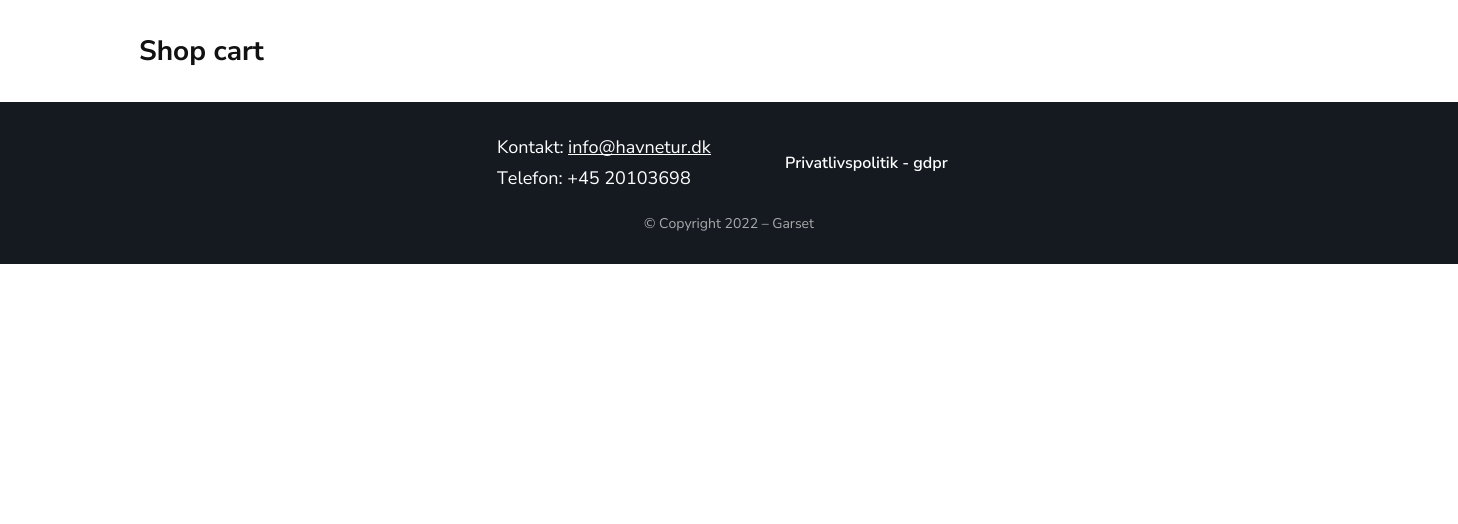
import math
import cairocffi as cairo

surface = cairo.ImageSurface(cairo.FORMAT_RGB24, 1458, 524)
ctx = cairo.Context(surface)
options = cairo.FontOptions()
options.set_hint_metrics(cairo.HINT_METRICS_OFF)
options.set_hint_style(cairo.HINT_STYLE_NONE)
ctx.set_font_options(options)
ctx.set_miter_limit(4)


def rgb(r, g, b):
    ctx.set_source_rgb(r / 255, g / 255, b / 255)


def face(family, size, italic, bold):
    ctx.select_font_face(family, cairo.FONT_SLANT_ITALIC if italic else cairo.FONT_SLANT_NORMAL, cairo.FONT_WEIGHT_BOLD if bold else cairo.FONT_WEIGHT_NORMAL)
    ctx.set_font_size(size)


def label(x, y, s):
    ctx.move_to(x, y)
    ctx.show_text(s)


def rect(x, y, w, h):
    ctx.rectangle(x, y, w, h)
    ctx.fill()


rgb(255, 255, 255)
ctx.paint()
face('Nunito Sans', 28, 0, 1)
rgb(17, 17, 17)
label(139, 60, 'Shop cart')
rgb(21, 26, 32)
rect(0, 102, 1458, 162)
face('Nunito Sans', 18, 0, 0)
rgb(255, 255, 255)
label(497, 153, 'Kontakt:')
rect(568, 154, 143, 1)
label(568, 153, 'info@havnetur.dk')
label(497, 184, 'Telefon: +45 20103698')
face('Nunito Sans SemiBold', 16, 0, 0)
label(785, 168, 'Privatlivspolitik - gdpr')
face('Nunito Sans', 14, 0, 0)
rgb(168, 170, 172)
label(644, 228, '© Copyright 2022 – Garset')
surface.write_to_png('render.png')
